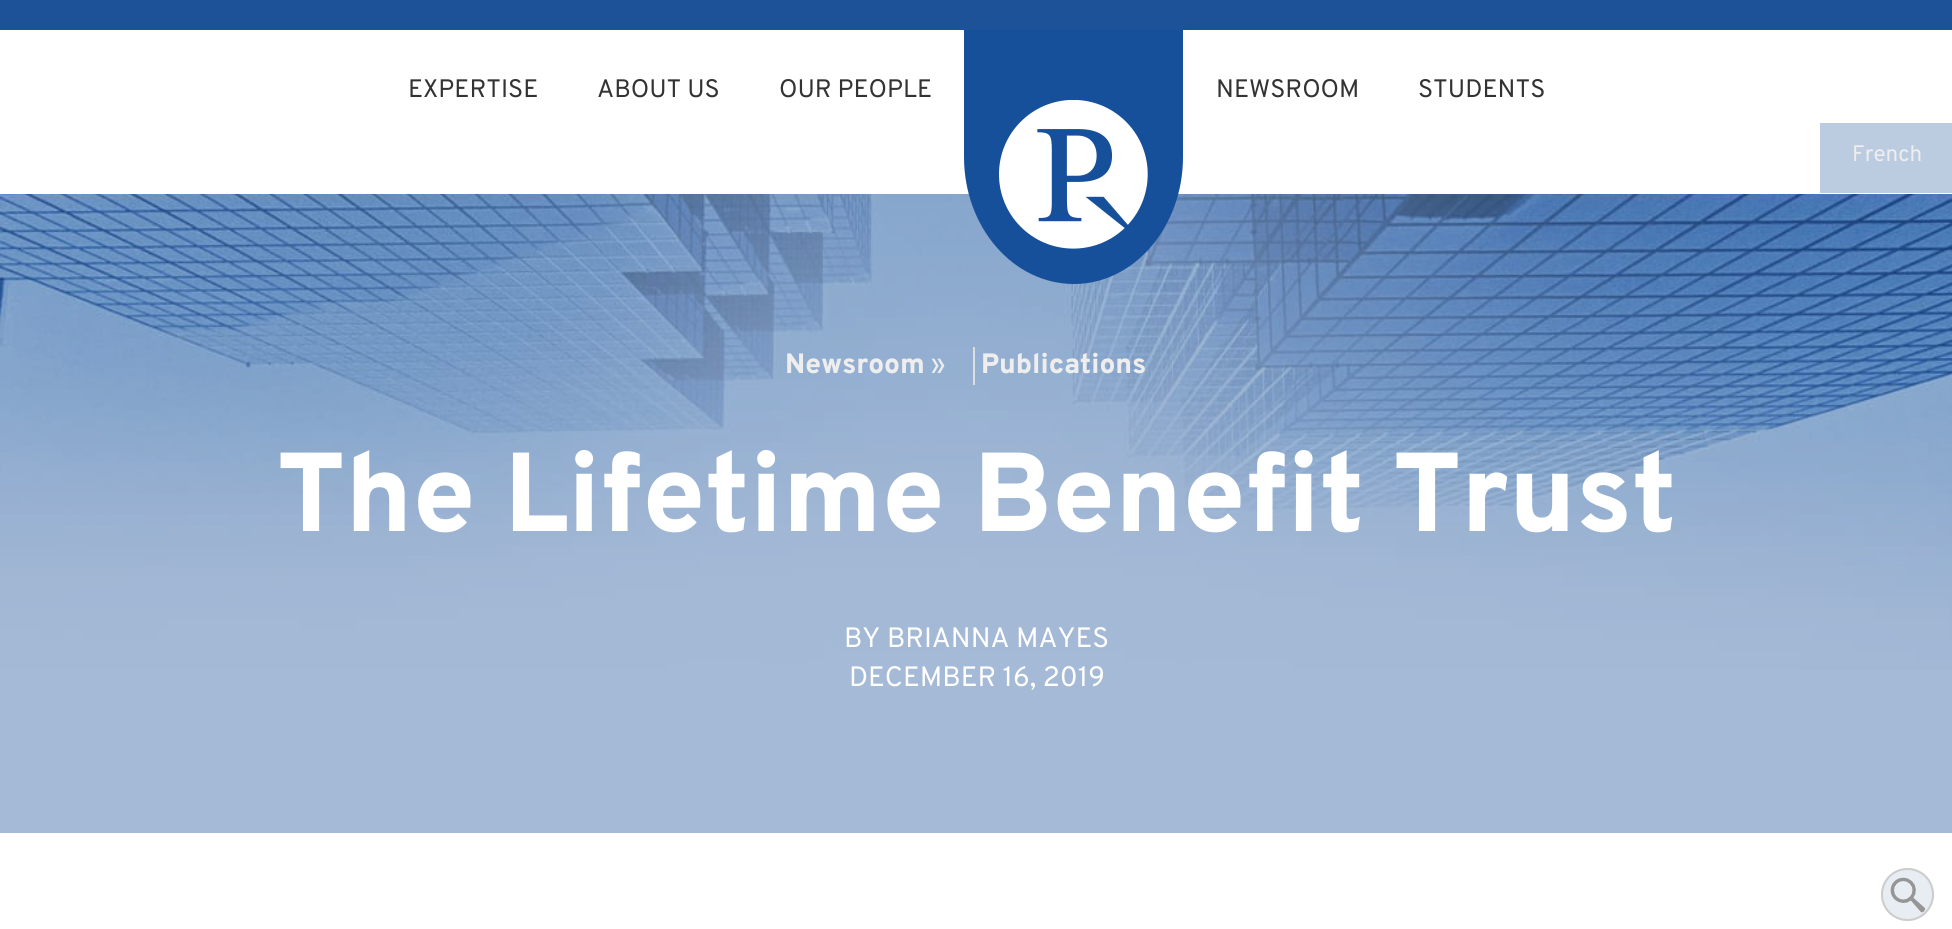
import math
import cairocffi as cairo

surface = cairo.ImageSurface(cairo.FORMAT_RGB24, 1952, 929)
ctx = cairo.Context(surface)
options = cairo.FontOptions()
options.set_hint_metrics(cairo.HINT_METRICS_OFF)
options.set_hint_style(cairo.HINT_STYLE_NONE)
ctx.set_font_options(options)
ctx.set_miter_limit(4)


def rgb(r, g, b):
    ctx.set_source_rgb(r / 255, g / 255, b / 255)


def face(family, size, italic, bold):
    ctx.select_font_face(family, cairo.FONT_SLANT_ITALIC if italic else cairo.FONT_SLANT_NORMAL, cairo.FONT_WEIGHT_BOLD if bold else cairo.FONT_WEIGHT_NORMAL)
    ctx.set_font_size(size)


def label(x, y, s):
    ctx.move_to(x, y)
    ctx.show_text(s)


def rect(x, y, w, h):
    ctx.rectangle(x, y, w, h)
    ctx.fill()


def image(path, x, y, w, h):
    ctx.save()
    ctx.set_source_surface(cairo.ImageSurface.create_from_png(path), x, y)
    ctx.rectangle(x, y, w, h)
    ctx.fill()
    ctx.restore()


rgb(255, 255, 255)
ctx.paint()
rgb(165, 186, 214)
rect(0, 670, 1952, 163)
rgb(29, 82, 152)
rect(0, 0, 1952, 30)
face('Overpass', 25.25, 0, 0)
rgb(51, 51, 51)
label(408, 97, 'EXPERTISE')
label(597, 97, 'ABOUT US')
label(779, 97, 'OUR PEOPLE')
image('image1.png', 0, 194, 1952, 476)
rgb(23, 80, 154)
ctx.new_path()
ctx.move_to(964, 30)
ctx.line_to(1183, 30)
ctx.line_to(1183, 157)
ctx.curve_to(1183, 227, 1134, 284, 1074, 284)
ctx.curve_to(1013, 284, 964, 227, 964, 157)
ctx.close_path()
ctx.fill()
image('image0.png', 999, 100, 149, 149)
rgb(51, 51, 51)
label(1216, 97, 'NEWSROOM')
label(1418, 97, 'STUDENTS')
rgb(187, 203, 224)
rect(1820, 123, 132, 70)
face('Overpass', 22.5, 0, 0)
rgb(238, 238, 238)
label(1852, 161, 'French')
rgb(221, 221, 221)
rect(973, 347, 2, 38)
face('Overpass ExtraBold', 28, 0, 0)
rgb(238, 238, 238)
label(785, 373, 'Newsroom')
face('Overpass', 28, 0, 0)
label(931, 373, '»')
face('Overpass ExtraBold', 28, 0, 0)
label(981, 373, 'Publications')
face('Overpass ExtraBold', 112, 0, 0)
rgb(255, 255, 255)
label(277, 531, 'The Lifetime Benefit Trust')
face('Overpass', 28, 0, 0)
label(844, 647, 'BY BRIANNA MAYES')
label(849, 686, 'DECEMBER 16, 2019')
rgb(232, 237, 244)
ctx.new_path()
ctx.arc(1907.5, 894.5, 26.5, 0, 2 * math.pi)
ctx.fill()
image('image2.png', 1890, 877, 36, 36)
ctx.arc(1907.5, 894.5, 25.5, 0, 2 * math.pi)
rgb(204, 204, 204)
ctx.stroke()
surface.write_to_png('render.png')
